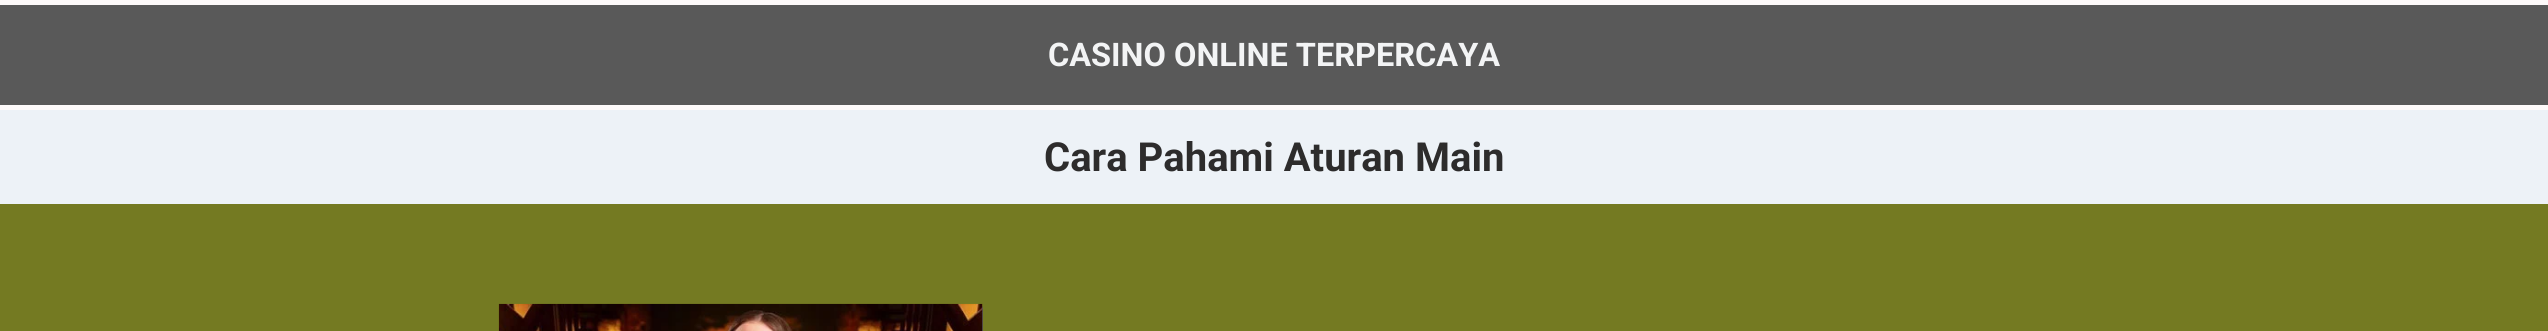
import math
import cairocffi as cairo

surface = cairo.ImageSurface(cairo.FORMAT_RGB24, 2548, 331)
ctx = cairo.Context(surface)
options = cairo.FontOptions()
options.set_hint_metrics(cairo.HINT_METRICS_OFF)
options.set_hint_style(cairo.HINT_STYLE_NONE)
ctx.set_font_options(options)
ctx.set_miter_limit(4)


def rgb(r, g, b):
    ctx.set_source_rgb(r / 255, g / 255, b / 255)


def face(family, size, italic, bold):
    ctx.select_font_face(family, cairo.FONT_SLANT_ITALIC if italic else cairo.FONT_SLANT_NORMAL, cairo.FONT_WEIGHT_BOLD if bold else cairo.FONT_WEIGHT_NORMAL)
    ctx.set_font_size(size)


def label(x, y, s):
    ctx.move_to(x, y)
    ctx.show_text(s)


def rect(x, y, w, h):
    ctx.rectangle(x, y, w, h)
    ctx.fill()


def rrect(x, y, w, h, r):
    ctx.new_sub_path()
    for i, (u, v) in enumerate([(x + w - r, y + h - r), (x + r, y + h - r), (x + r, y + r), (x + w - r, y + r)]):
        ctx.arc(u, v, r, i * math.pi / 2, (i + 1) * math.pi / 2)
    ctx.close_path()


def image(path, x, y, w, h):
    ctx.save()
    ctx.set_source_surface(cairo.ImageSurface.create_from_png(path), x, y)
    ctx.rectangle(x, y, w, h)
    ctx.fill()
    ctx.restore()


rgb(116, 122, 34)
ctx.paint()
rgb(89, 89, 89)
rect(0, 5, 2548, 100)
rgb(253, 249, 249)
rect(0, 0, 2548, 5)
rect(0, 105, 2548, 5)
face('Roboto', 32.5, 0, 1)
rgb(243, 244, 245)
label(1048, 66, 'CASINO ONLINE TERPERCAYA')
rgb(237, 242, 247)
rect(0, 110, 2548, 94)
face('Roboto', 40, 0, 1)
rgb(45, 44, 44)
label(1044, 171, 'Cara Pahami Aturan Main')
rgb(90, 90, 90)
rrect(499, 304, 484, 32, 5)
ctx.fill()
image('image0.png', 498, 303, 485, 28)
surface.write_to_png('render.png')
